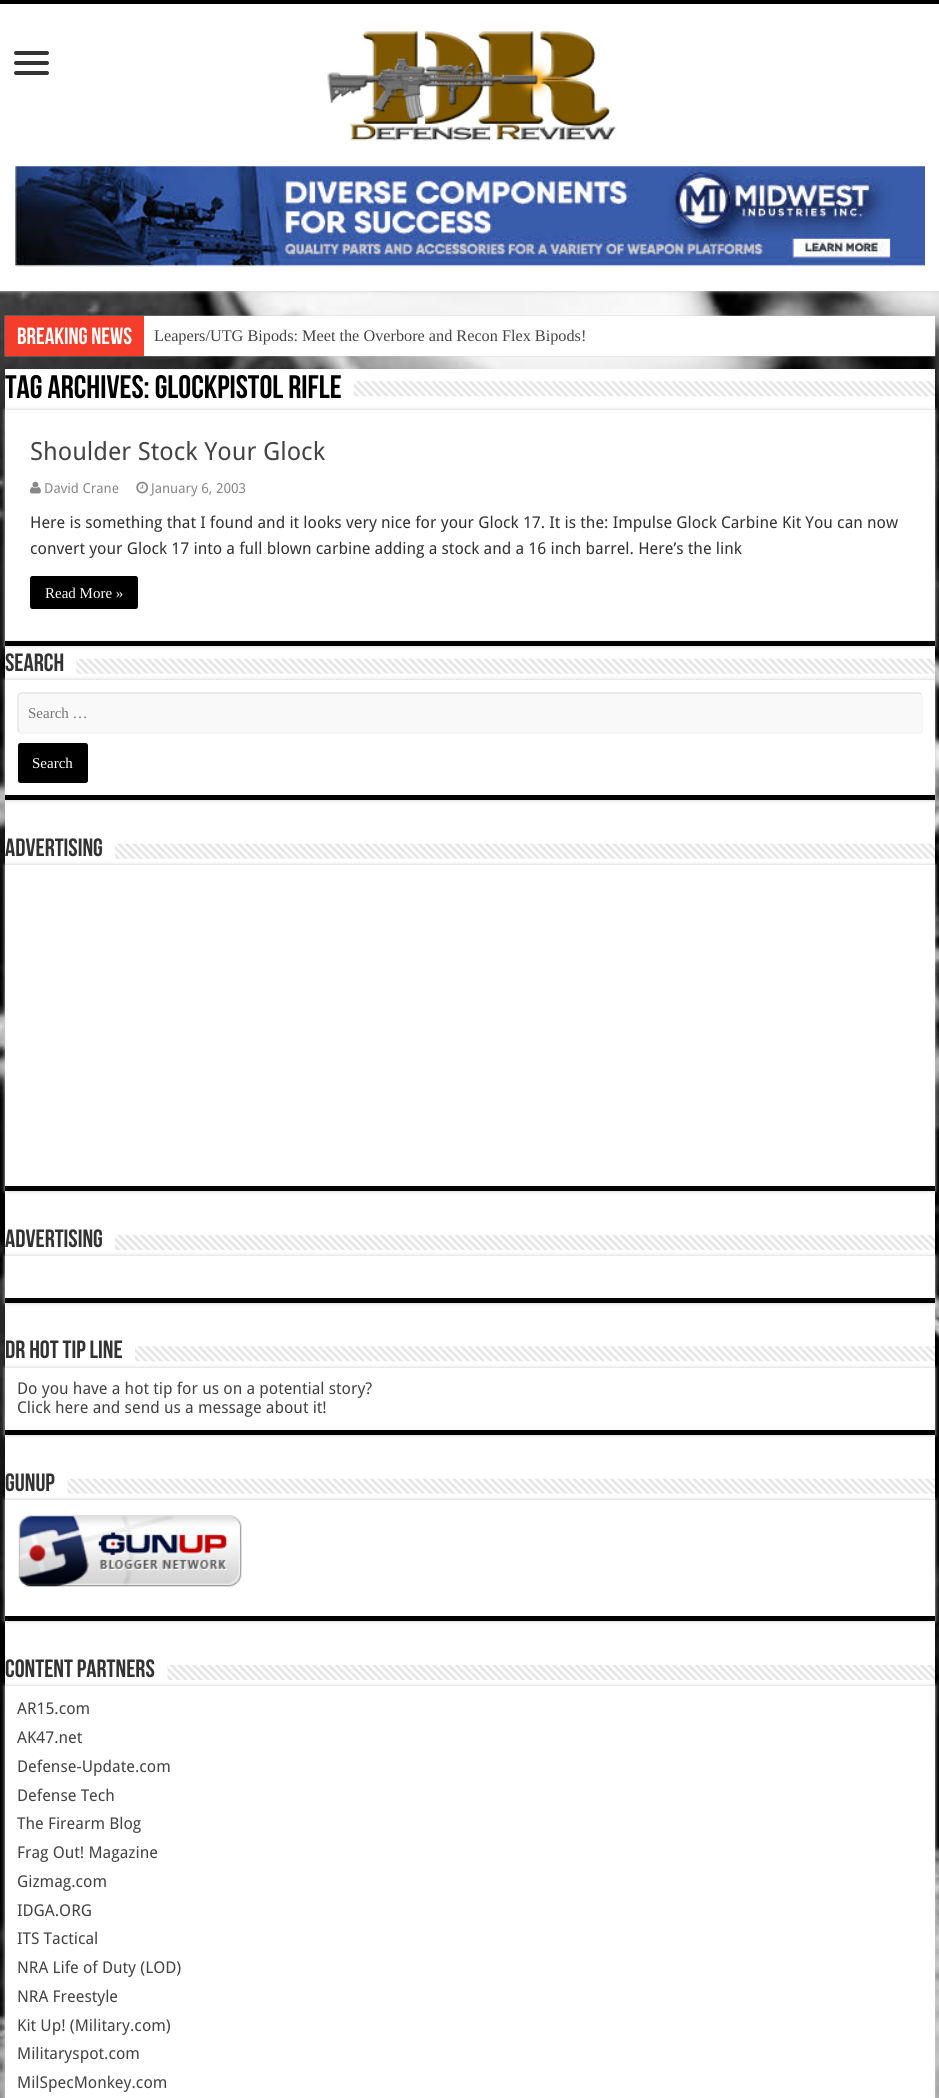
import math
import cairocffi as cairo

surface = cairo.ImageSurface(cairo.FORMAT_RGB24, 939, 2098)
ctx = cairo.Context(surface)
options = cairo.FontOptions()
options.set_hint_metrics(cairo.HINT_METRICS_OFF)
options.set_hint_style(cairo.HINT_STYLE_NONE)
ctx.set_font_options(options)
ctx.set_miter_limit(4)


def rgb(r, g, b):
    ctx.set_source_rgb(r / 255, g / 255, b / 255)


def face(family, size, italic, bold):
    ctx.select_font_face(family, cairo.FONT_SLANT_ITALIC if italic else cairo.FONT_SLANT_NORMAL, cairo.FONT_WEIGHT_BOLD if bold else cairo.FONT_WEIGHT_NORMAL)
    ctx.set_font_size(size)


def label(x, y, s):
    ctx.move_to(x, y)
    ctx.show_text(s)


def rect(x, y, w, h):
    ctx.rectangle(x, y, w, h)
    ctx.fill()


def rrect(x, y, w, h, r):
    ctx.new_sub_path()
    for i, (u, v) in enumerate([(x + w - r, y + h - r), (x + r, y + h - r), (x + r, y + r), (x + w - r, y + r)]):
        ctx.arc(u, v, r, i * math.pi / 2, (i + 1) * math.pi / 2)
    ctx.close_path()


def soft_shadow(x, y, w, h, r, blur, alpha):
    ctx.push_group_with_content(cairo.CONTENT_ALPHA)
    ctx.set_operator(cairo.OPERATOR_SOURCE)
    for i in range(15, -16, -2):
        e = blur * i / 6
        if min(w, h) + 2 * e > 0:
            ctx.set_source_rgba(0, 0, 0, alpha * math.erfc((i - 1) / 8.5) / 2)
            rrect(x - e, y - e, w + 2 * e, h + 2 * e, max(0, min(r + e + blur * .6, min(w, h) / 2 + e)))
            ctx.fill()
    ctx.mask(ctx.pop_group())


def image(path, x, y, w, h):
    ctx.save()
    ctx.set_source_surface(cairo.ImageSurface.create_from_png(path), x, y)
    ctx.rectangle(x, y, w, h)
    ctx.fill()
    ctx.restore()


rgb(255, 255, 255)
ctx.paint()
image('image0.png', 0, 291, 939, 1807)
rgb(202, 202, 202)
soft_shadow(0, 0, 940, 291, 0, 2, 1)
rgb(255, 255, 255)
rect(0, 4, 939, 287)
rgb(0, 0, 0)
rect(0, 0, 939, 4)
rgb(51, 51, 51)
rrect(14, 51, 35, 4, 2)
ctx.fill()
rrect(14, 61, 35, 4, 2)
ctx.fill()
rrect(14, 71, 35, 4, 2)
ctx.fill()
image('image1.png', 327, 31, 290, 110)
image('image2.png', 15, 166, 910, 101)
rgb(202, 202, 202)
soft_shadow(5, 316, 930, 40, 0, 0.5, 1)
rgb(255, 255, 255)
rect(144, 316, 791, 40)
rgb(244, 61, 42)
rect(5, 316, 139, 40)
face('Bebas Neue', 23.5, 0, 1)
rgb(255, 255, 255)
label(17, 344, 'Breaking News')
face('Liberation Serif', 16.25, 0, 0)
rgb(68, 68, 68)
label(154, 341, 'Leapers/UTG Bipods: Meet the Overbore and Recon Flex Bipods!')
rgb(255, 255, 255)
rect(5, 369, 930, 1317)
face('Bebas Neue', 32.5, 0, 1)
rgb(0, 0, 0)
label(5, 398, 'Tag Archives: glockpistol rifle')
image('image3.png', 353, 381, 582, 16)
ctx.save()
ctx.set_fill_rule(cairo.FILL_RULE_EVEN_ODD)
ctx.new_path()
ctx.move_to(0, 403)
ctx.line_to(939, 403)
ctx.line_to(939, 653)
ctx.line_to(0, 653)
ctx.close_path()
ctx.move_to(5, 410)
ctx.line_to(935, 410)
ctx.line_to(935, 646)
ctx.line_to(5, 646)
ctx.close_path()
ctx.clip()
rgb(202, 202, 202)
soft_shadow(5, 410, 930, 236, 0, 2, 1)
ctx.restore()
rect(5, 641, 930, 5)
rgb(242, 242, 242)
rect(5, 640, 930, 1)
face('Droid Sans', 25, 0, 0)
rgb(68, 68, 68)
label(30, 460, 'Shoulder Stock Your Glock')
image('image4.png', 30, 481, 11, 13)
face('Droid Sans', 13.75, 0, 0)
rgb(136, 136, 136)
label(44, 493, 'David Crane')
image('image5.png', 136, 481, 13, 13)
label(151, 493, 'January 6, 2003')
face('Droid Sans', 16.25, 0, 0)
rgb(51, 51, 51)
label(30, 528, 'Here is something that I found and it looks very nice for your Glock 17. It is the: Impulse Glock Carbine Kit You can now')
label(30, 554, 'convert your Glock 17 into a full blown carbine adding a stock and a 16 inch barrel. Here’s the link')
rgb(0, 0, 0)
rrect(30, 576, 108, 33, 2.5)
ctx.fill()
face('Liberation Serif', 15, 0, 0)
rgb(255, 255, 255)
label(45, 598, 'Read More »')
face('Bebas Neue', 25, 0, 1)
rgb(51, 51, 51)
label(5, 671, 'SEARCH')
ctx.save()
ctx.set_fill_rule(cairo.FILL_RULE_EVEN_ODD)
ctx.new_path()
ctx.move_to(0, 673)
ctx.line_to(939, 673)
ctx.line_to(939, 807)
ctx.line_to(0, 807)
ctx.close_path()
ctx.move_to(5, 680)
ctx.line_to(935, 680)
ctx.line_to(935, 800)
ctx.line_to(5, 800)
ctx.close_path()
ctx.clip()
rgb(202, 202, 202)
soft_shadow(5, 680, 930, 120, 0, 2, 1)
ctx.restore()
image('image6.png', 76, 658, 859, 16)
rgb(0, 0, 0)
rect(5, 795, 930, 5)
rgb(249, 249, 249)
rrect(18, 693, 905, 41, 4)
ctx.fill()
ctx.new_path()
ctx.move_to(921, 694)
ctx.line_to(922, 696)
ctx.line_to(922, 730)
ctx.line_to(921, 732)
ctx.line_to(919, 733)
ctx.line_to(21, 733)
ctx.line_to(19, 732)
rgb(241, 241, 241)
ctx.set_line_width(1.2)
ctx.stroke()
ctx.new_path()
ctx.move_to(19, 732)
ctx.line_to(18, 730)
ctx.line_to(18, 696)
ctx.line_to(19, 694)
ctx.line_to(21, 693)
ctx.line_to(919, 693)
ctx.line_to(921, 694)
rgb(221, 221, 221)
ctx.stroke()
face('Liberation Serif', 15, 0, 0)
rgb(117, 117, 117)
label(28, 718, 'Search …')
rgb(0, 0, 0)
rrect(18, 743, 70, 40, 2.5)
ctx.fill()
rgb(255, 255, 255)
label(32, 768, 'Search')
face('Bebas Neue', 25, 0, 1)
rgb(51, 51, 51)
label(5, 856, 'ADVERTISING')
ctx.save()
ctx.set_fill_rule(cairo.FILL_RULE_EVEN_ODD)
ctx.new_path()
ctx.move_to(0, 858)
ctx.line_to(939, 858)
ctx.line_to(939, 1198)
ctx.line_to(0, 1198)
ctx.close_path()
ctx.move_to(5, 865)
ctx.line_to(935, 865)
ctx.line_to(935, 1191)
ctx.line_to(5, 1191)
ctx.close_path()
ctx.clip()
rgb(202, 202, 202)
soft_shadow(5, 865, 930, 326, 0, 2, 1)
ctx.restore()
image('image7.png', 115, 843, 820, 16)
rgb(0, 0, 0)
rect(5, 1186, 930, 5)
rgb(51, 51, 51)
label(5, 1247, 'ADVERTISING')
rgb(202, 202, 202)
soft_shadow(5, 1256, 930, 47, 0, 2, 1)
image('image8.png', 115, 1235, 820, 15)
rgb(255, 255, 255)
rect(5, 1256, 930, 42)
rgb(0, 0, 0)
rect(5, 1298, 930, 5)
rgb(51, 51, 51)
label(5, 1358, 'DR HOT TIP LINE')
ctx.save()
ctx.set_fill_rule(cairo.FILL_RULE_EVEN_ODD)
ctx.new_path()
ctx.move_to(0, 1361)
ctx.line_to(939, 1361)
ctx.line_to(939, 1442)
ctx.line_to(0, 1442)
ctx.close_path()
ctx.move_to(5, 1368)
ctx.line_to(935, 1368)
ctx.line_to(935, 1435)
ctx.line_to(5, 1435)
ctx.close_path()
ctx.clip()
rgb(202, 202, 202)
soft_shadow(5, 1368, 930, 67, 0, 2, 1)
ctx.restore()
image('image9.png', 135, 1346, 800, 16)
rgb(0, 0, 0)
rect(5, 1430, 930, 5)
face('Droid Sans', 16.25, 0, 0)
rgb(68, 68, 68)
label(17, 1394, 'Do you have a hot tip for us on a potential story?')
label(17, 1413, 'Click here and send us a message about it!')
face('Bebas Neue', 25, 0, 1)
rgb(51, 51, 51)
label(5, 1491, 'GUNUP')
ctx.save()
ctx.set_fill_rule(cairo.FILL_RULE_EVEN_ODD)
ctx.new_path()
ctx.move_to(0, 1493)
ctx.line_to(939, 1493)
ctx.line_to(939, 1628)
ctx.line_to(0, 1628)
ctx.close_path()
ctx.move_to(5, 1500)
ctx.line_to(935, 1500)
ctx.line_to(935, 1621)
ctx.line_to(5, 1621)
ctx.close_path()
ctx.clip()
rgb(202, 202, 202)
soft_shadow(5, 1500, 930, 121, 0, 2, 1)
ctx.restore()
image('image10.png', 67, 1478, 868, 16)
rgb(0, 0, 0)
rect(5, 1616, 930, 5)
image('image11.png', 18, 1515, 224, 72)
rgb(51, 51, 51)
label(5, 1677, 'CONTENT PARTNERS')
rgb(202, 202, 202)
soft_shadow(5, 1686, 930, 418, 0, 2, 1)
image('image12.png', 167, 1665, 768, 15)
rgb(255, 255, 255)
rect(5, 1686, 930, 412)
face('Droid Sans', 16.25, 0, 0)
rgb(68, 68, 68)
label(17, 1714, 'AR15.com')
label(17, 1743, 'AK47.net')
label(17, 1772, 'Defense-Update.com')
label(17, 1801, 'Defense Tech')
label(17, 1829, 'The Firearm Blog')
label(17, 1858, 'Frag Out! Magazine')
label(17, 1887, 'Gizmag.com')
label(17, 1916, 'IDGA.ORG')
label(17, 1944, 'ITS Tactical')
label(17, 1973, 'NRA Life of Duty (LOD)')
label(17, 2002, 'NRA Freestyle')
label(17, 2031, 'Kit Up! (Military.com)')
label(17, 2059, 'Militaryspot.com')
label(17, 2088, 'MilSpecMonkey.com')
surface.write_to_png('render.png')
